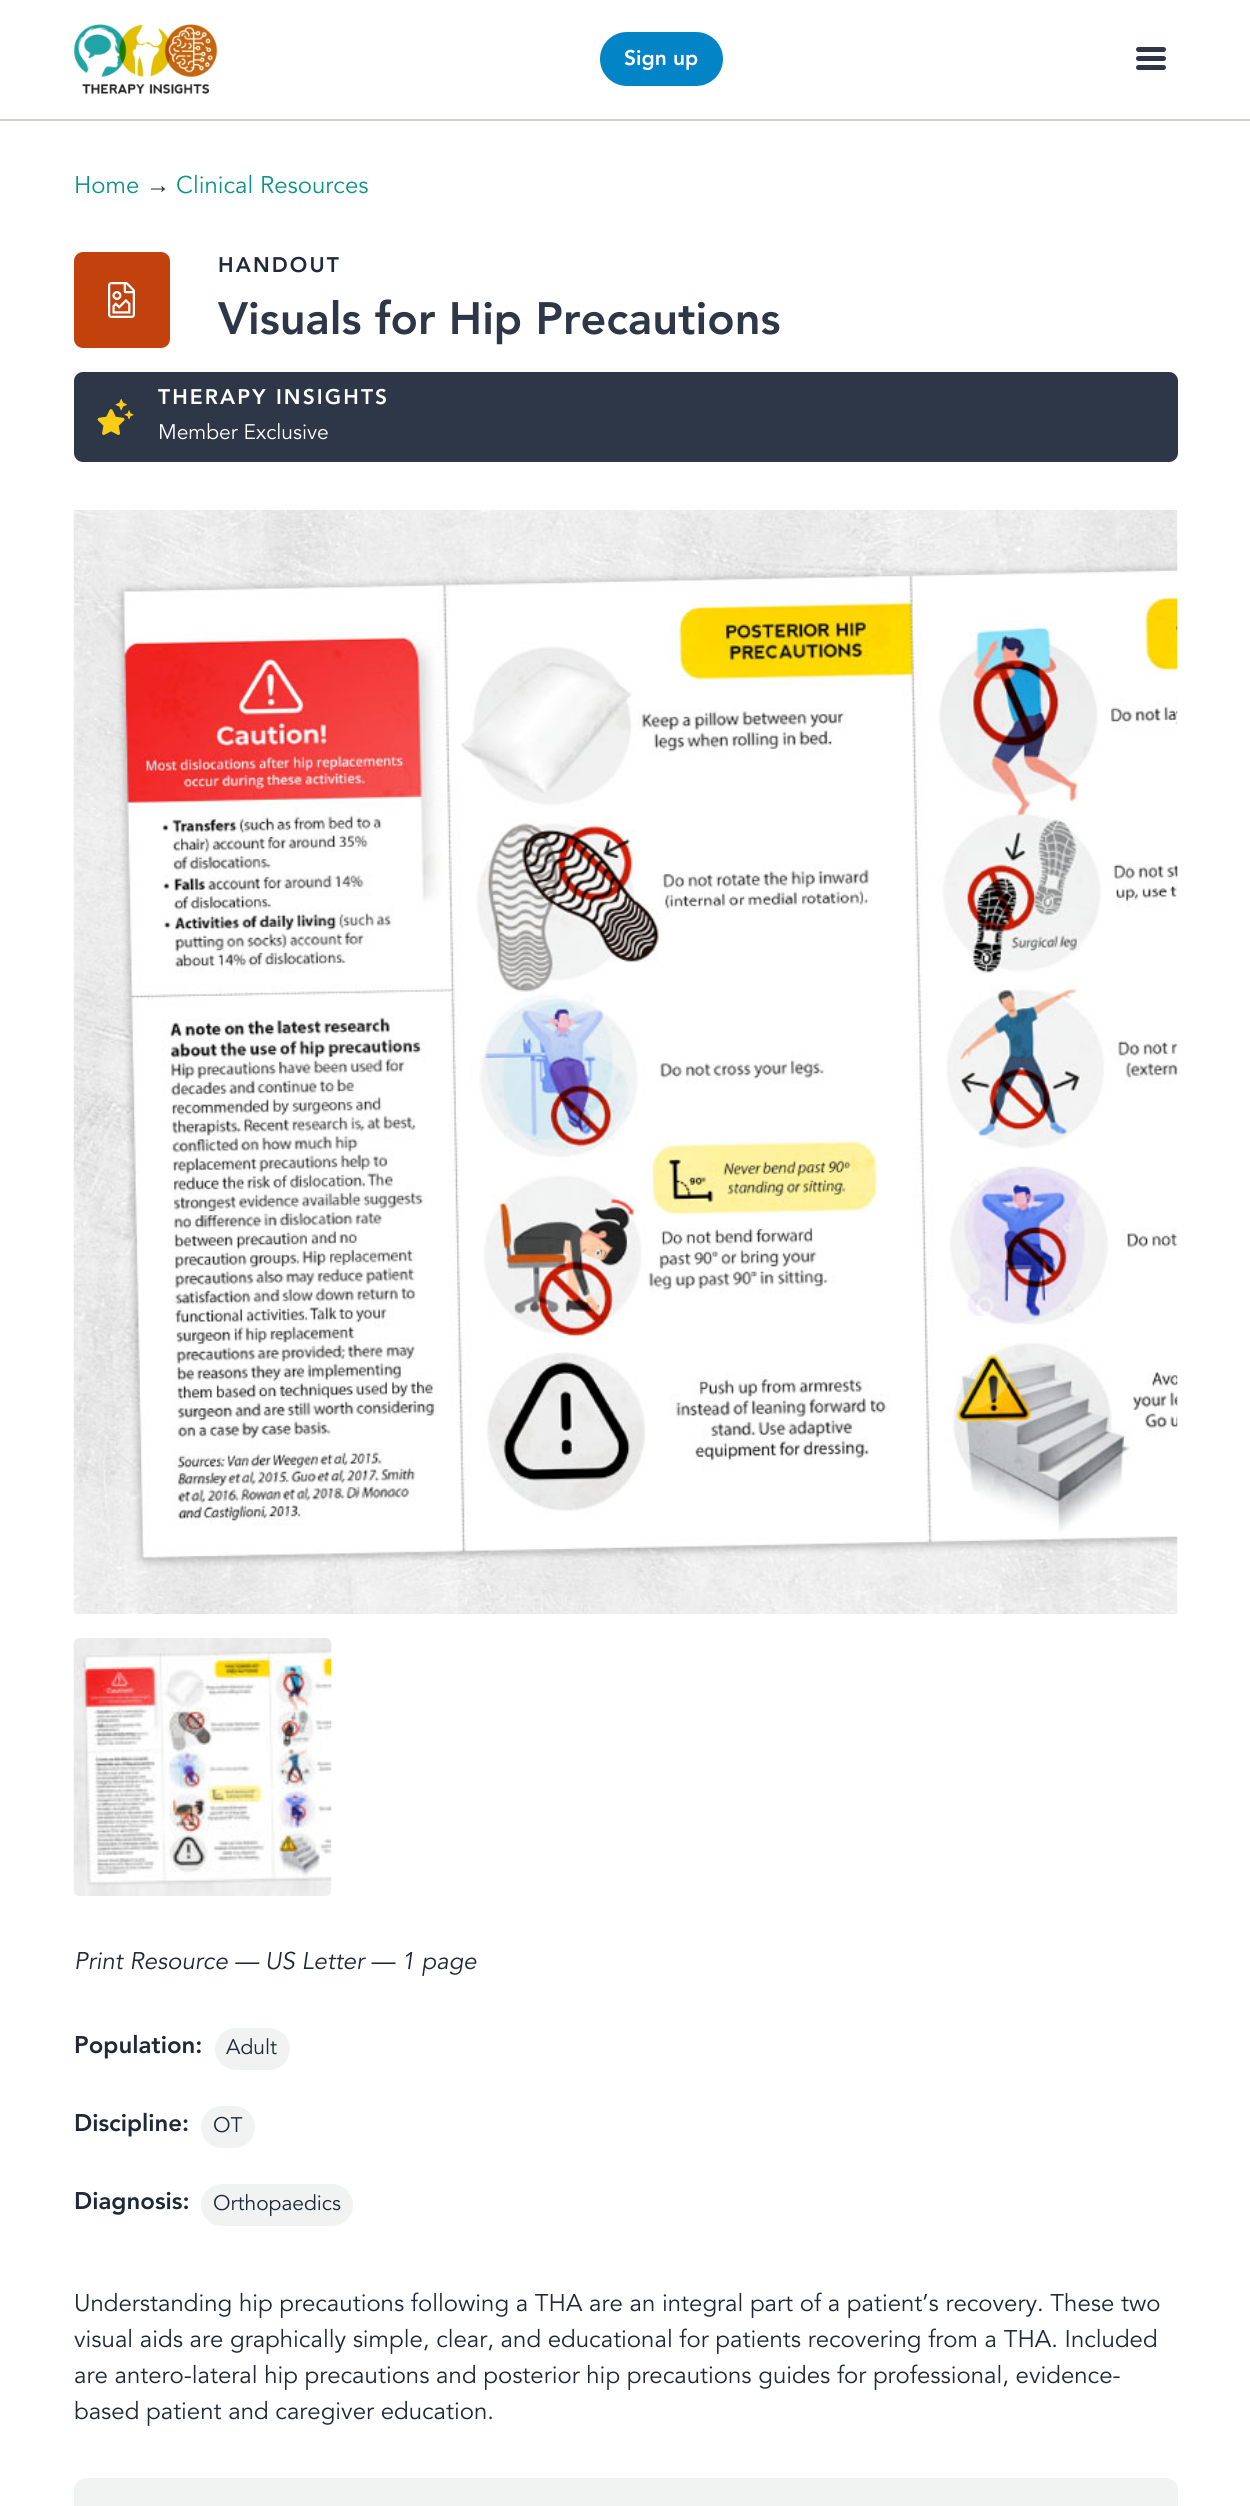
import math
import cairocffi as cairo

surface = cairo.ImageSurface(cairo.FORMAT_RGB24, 1250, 2506)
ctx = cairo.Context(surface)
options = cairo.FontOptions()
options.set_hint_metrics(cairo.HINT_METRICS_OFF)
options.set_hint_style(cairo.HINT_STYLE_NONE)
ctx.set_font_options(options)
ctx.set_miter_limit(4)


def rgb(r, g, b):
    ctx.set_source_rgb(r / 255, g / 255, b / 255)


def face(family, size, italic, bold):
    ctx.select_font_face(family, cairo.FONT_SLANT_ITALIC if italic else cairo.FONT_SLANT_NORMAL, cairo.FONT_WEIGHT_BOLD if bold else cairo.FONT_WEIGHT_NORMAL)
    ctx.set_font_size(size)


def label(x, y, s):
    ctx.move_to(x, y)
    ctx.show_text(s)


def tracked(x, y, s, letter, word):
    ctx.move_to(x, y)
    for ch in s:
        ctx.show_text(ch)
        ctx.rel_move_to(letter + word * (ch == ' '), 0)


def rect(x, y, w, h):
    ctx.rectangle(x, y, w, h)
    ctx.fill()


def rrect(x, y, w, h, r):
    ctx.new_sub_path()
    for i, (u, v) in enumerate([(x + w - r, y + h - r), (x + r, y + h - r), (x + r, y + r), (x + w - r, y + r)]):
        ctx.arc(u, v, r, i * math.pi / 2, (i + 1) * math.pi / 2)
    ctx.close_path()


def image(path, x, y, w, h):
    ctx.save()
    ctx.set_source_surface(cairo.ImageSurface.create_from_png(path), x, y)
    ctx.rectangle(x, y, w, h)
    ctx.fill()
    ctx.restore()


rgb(255, 255, 255)
ctx.paint()
rgb(211, 211, 205)
rect(0, 119, 1250, 2)
image('image0.png', 73, 24, 145, 70)
rgb(2, 132, 199)
rrect(600, 32, 123, 54, 27)
ctx.fill()
face('Avenir Black', 21, 0, 0)
rgb(255, 255, 255)
label(624, 65, 'Sign up')
rgb(45, 55, 72)
rrect(1136, 47, 30, 5, 2.5)
ctx.fill()
rrect(1136, 56, 30, 5, 2.5)
ctx.fill()
rrect(1136, 65, 30, 5, 2.5)
ctx.fill()
face('Avenir', 24, 0, 0)
rgb(13, 148, 136)
label(74, 193, 'Home')
face('Liberation Sans', 24, 0, 0)
rgb(31, 41, 55)
label(146, 193, '→')
face('Avenir', 24, 0, 0)
rgb(13, 148, 136)
label(176, 193, 'Clinical Resources')
rgb(194, 65, 12)
rrect(74, 252, 96, 96, 9)
ctx.fill()
image('image1.png', 108, 282, 27, 36)
face('Avenir Black', 21, 0, 0)
rgb(31, 41, 55)
tracked(218, 272, 'HANDOUT', 2.1, 0)
face('Avenir Black', 45, 0, 0)
rgb(45, 55, 72)
label(218, 334, 'Visuals for Hip Precautions')
rrect(74, 372, 1104, 90, 9)
ctx.fill()
image('image2.png', 97, 399, 37, 36)
face('Avenir Black', 21, 0, 0)
rgb(255, 255, 255)
tracked(158, 404, 'THERAPY INSIGHTS', 2.1, 0)
face('Avenir', 21, 0, 0)
label(158, 439, 'Member Exclusive')
image('image3.png', 73, 510, 1105, 1104)
image('image4.png', 73, 1638, 259, 258)
face('Avenir', 24, 1, 0)
rgb(31, 41, 55)
label(74, 1969, 'Print Resource — US Letter — 1 page')
face('Avenir Black', 24, 0, 0)
label(74, 2053, 'Population:')
rgb(241, 242, 242)
rrect(215, 2028, 75, 42, 21)
ctx.fill()
face('Avenir', 21, 0, 0)
rgb(31, 41, 55)
label(226, 2054, 'Adult')
face('Avenir Black', 24, 0, 0)
label(74, 2131, 'Discipline:')
rgb(241, 242, 242)
rrect(201, 2106, 54, 42, 21)
ctx.fill()
face('Avenir', 21, 0, 0)
rgb(31, 41, 55)
label(213, 2132, 'OT')
face('Avenir Black', 24, 0, 0)
label(74, 2209, 'Diagnosis:')
rgb(241, 242, 242)
rrect(201, 2184, 152, 42, 21)
ctx.fill()
face('Avenir', 21, 0, 0)
rgb(31, 41, 55)
label(213, 2210, 'Orthopaedics')
face('Avenir', 24, 0, 0)
label(74, 2311, 'Understanding hip precautions following a THA are an integral part of a patient’s recovery. These two')
label(74, 2347, 'visual aids are graphically simple, clear, and educational for patients recovering from a THA. Included')
label(74, 2383, 'are antero-lateral hip precautions and posterior hip precautions guides for professional, evidence-')
label(74, 2419, 'based patient and caregiver education.')
rgb(241, 242, 242)
rrect(74, 2478, 1104, 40, 12)
ctx.fill()
surface.write_to_png('render.png')
